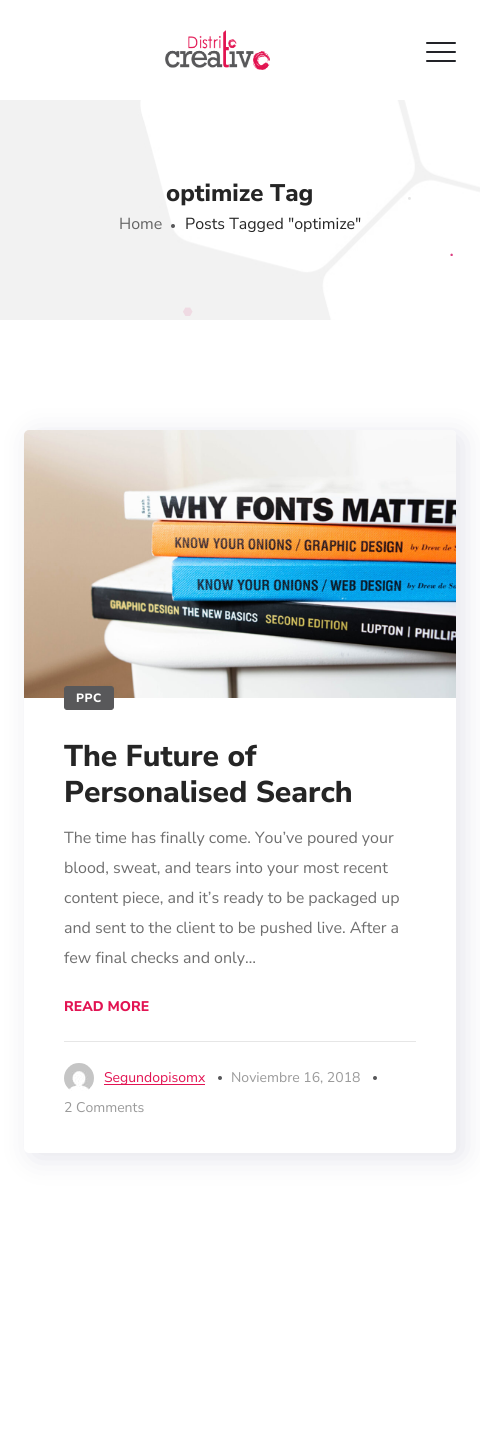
import math
import cairocffi as cairo

surface = cairo.ImageSurface(cairo.FORMAT_RGB24, 480, 1433)
ctx = cairo.Context(surface)
options = cairo.FontOptions()
options.set_hint_metrics(cairo.HINT_METRICS_OFF)
options.set_hint_style(cairo.HINT_STYLE_NONE)
ctx.set_font_options(options)
ctx.set_miter_limit(4)


def rgb(r, g, b):
    ctx.set_source_rgb(r / 255, g / 255, b / 255)


def face(family, size, italic, bold):
    ctx.select_font_face(family, cairo.FONT_SLANT_ITALIC if italic else cairo.FONT_SLANT_NORMAL, cairo.FONT_WEIGHT_BOLD if bold else cairo.FONT_WEIGHT_NORMAL)
    ctx.set_font_size(size)


def label(x, y, s):
    ctx.move_to(x, y)
    ctx.show_text(s)


def tracked(x, y, s, letter, word):
    ctx.move_to(x, y)
    for ch in s:
        ctx.show_text(ch)
        ctx.rel_move_to(letter + word * (ch == ' '), 0)


def rect(x, y, w, h):
    ctx.rectangle(x, y, w, h)
    ctx.fill()


def rrect(x, y, w, h, r):
    ctx.new_sub_path()
    for i, (u, v) in enumerate([(x + w - r, y + h - r), (x + r, y + h - r), (x + r, y + r), (x + w - r, y + r)]):
        ctx.arc(u, v, r, i * math.pi / 2, (i + 1) * math.pi / 2)
    ctx.close_path()


def soft_shadow(x, y, w, h, r, blur, alpha):
    ctx.push_group_with_content(cairo.CONTENT_ALPHA)
    ctx.set_operator(cairo.OPERATOR_SOURCE)
    for i in range(15, -16, -2):
        e = blur * i / 6
        if min(w, h) + 2 * e > 0:
            ctx.set_source_rgba(0, 0, 0, alpha * math.erfc((i - 1) / 8.5) / 2)
            rrect(x - e, y - e, w + 2 * e, h + 2 * e, max(0, min(r + e + blur * .6, min(w, h) / 2 + e)))
            ctx.fill()
    ctx.mask(ctx.pop_group())


def image(path, x, y, w, h):
    ctx.save()
    ctx.set_source_surface(cairo.ImageSurface.create_from_png(path), x, y)
    ctx.rectangle(x, y, w, h)
    ctx.fill()
    ctx.restore()


rgb(255, 255, 255)
ctx.paint()
image('image0.png', 165, 30, 105, 40)
rgb(34, 35, 40)
rrect(426, 42, 30, 2, 1)
ctx.fill()
rrect(426, 51, 30, 2, 1)
ctx.fill()
rrect(426, 60, 30, 2, 1)
ctx.fill()
image('image1.png', 0, 100, 480, 220)
image('image2.png', 183, 197, 270, 119)
face('Nunito Sans ExtraBold', 24, 0, 0)
rgb(37, 37, 37)
label(166, 201, 'optimize Tag')
face('Nunito Sans', 16, 0, 0)
rgb(99, 99, 99)
label(119, 229, 'Home')
rgb(88, 88, 90)
ctx.new_path()
ctx.arc(173, 226, 2, 0, 2 * math.pi)
ctx.fill()
rgb(37, 37, 37)
label(185, 229, 'Posts Tagged "optimize"')
rgb(72, 73, 121)
soft_shadow(31, 435, 432, 723, 5, 15, 0.15)
rgb(255, 255, 255)
rrect(24, 430, 432, 723, 5)
ctx.fill()
image('image3.png', 24, 430, 432, 268)
rgb(88, 88, 90)
rrect(64.5, 686.5, 49, 23, 2.5)
ctx.fill_preserve()
ctx.set_line_width(1)
ctx.stroke()
face('Nunito Sans ExtraBold', 12, 0, 0)
rgb(255, 255, 255)
tracked(76, 702, 'PPC', 0.5, 0)
face('Nunito Sans ExtraBold', 30, 0, 0)
rgb(37, 37, 37)
label(64, 766, 'The Future of')
label(64, 802, 'Personalised Search')
face('Nunito Sans', 16, 0, 0)
rgb(110, 110, 110)
label(64, 843, 'The time has finally come. You’ve poured your')
label(64, 873, 'blood, sweat, and tears into your most recent')
label(64, 903, 'content piece, and it’s ready to be packaged up')
label(64, 933, 'and sent to the client to be pushed live. After a')
label(64, 963, 'few final checks and only…')
face('Nunito Sans ExtraBold', 14, 0, 0)
rgb(226, 19, 82)
label(64, 1011, 'READ MORE')
rgb(230, 230, 230)
rect(64, 1041, 352, 1)
image('image4.png', 64, 1063, 30, 28)
face('Nunito Sans', 14, 0, 0)
rgb(226, 19, 82)
label(104, 1082, 'Segundopisomx')
rect(104, 1084, 101, 1)
rgb(88, 88, 90)
ctx.new_path()
ctx.arc(220, 1078, 2, 0, 2 * math.pi)
ctx.fill()
rgb(154, 154, 154)
label(231, 1082, 'Noviembre 16, 2018')
rgb(88, 88, 90)
ctx.new_path()
ctx.arc(375, 1078, 2, 0, 2 * math.pi)
ctx.fill()
rgb(154, 154, 154)
label(64, 1112, '2 Comments')
surface.write_to_png('render.png')
